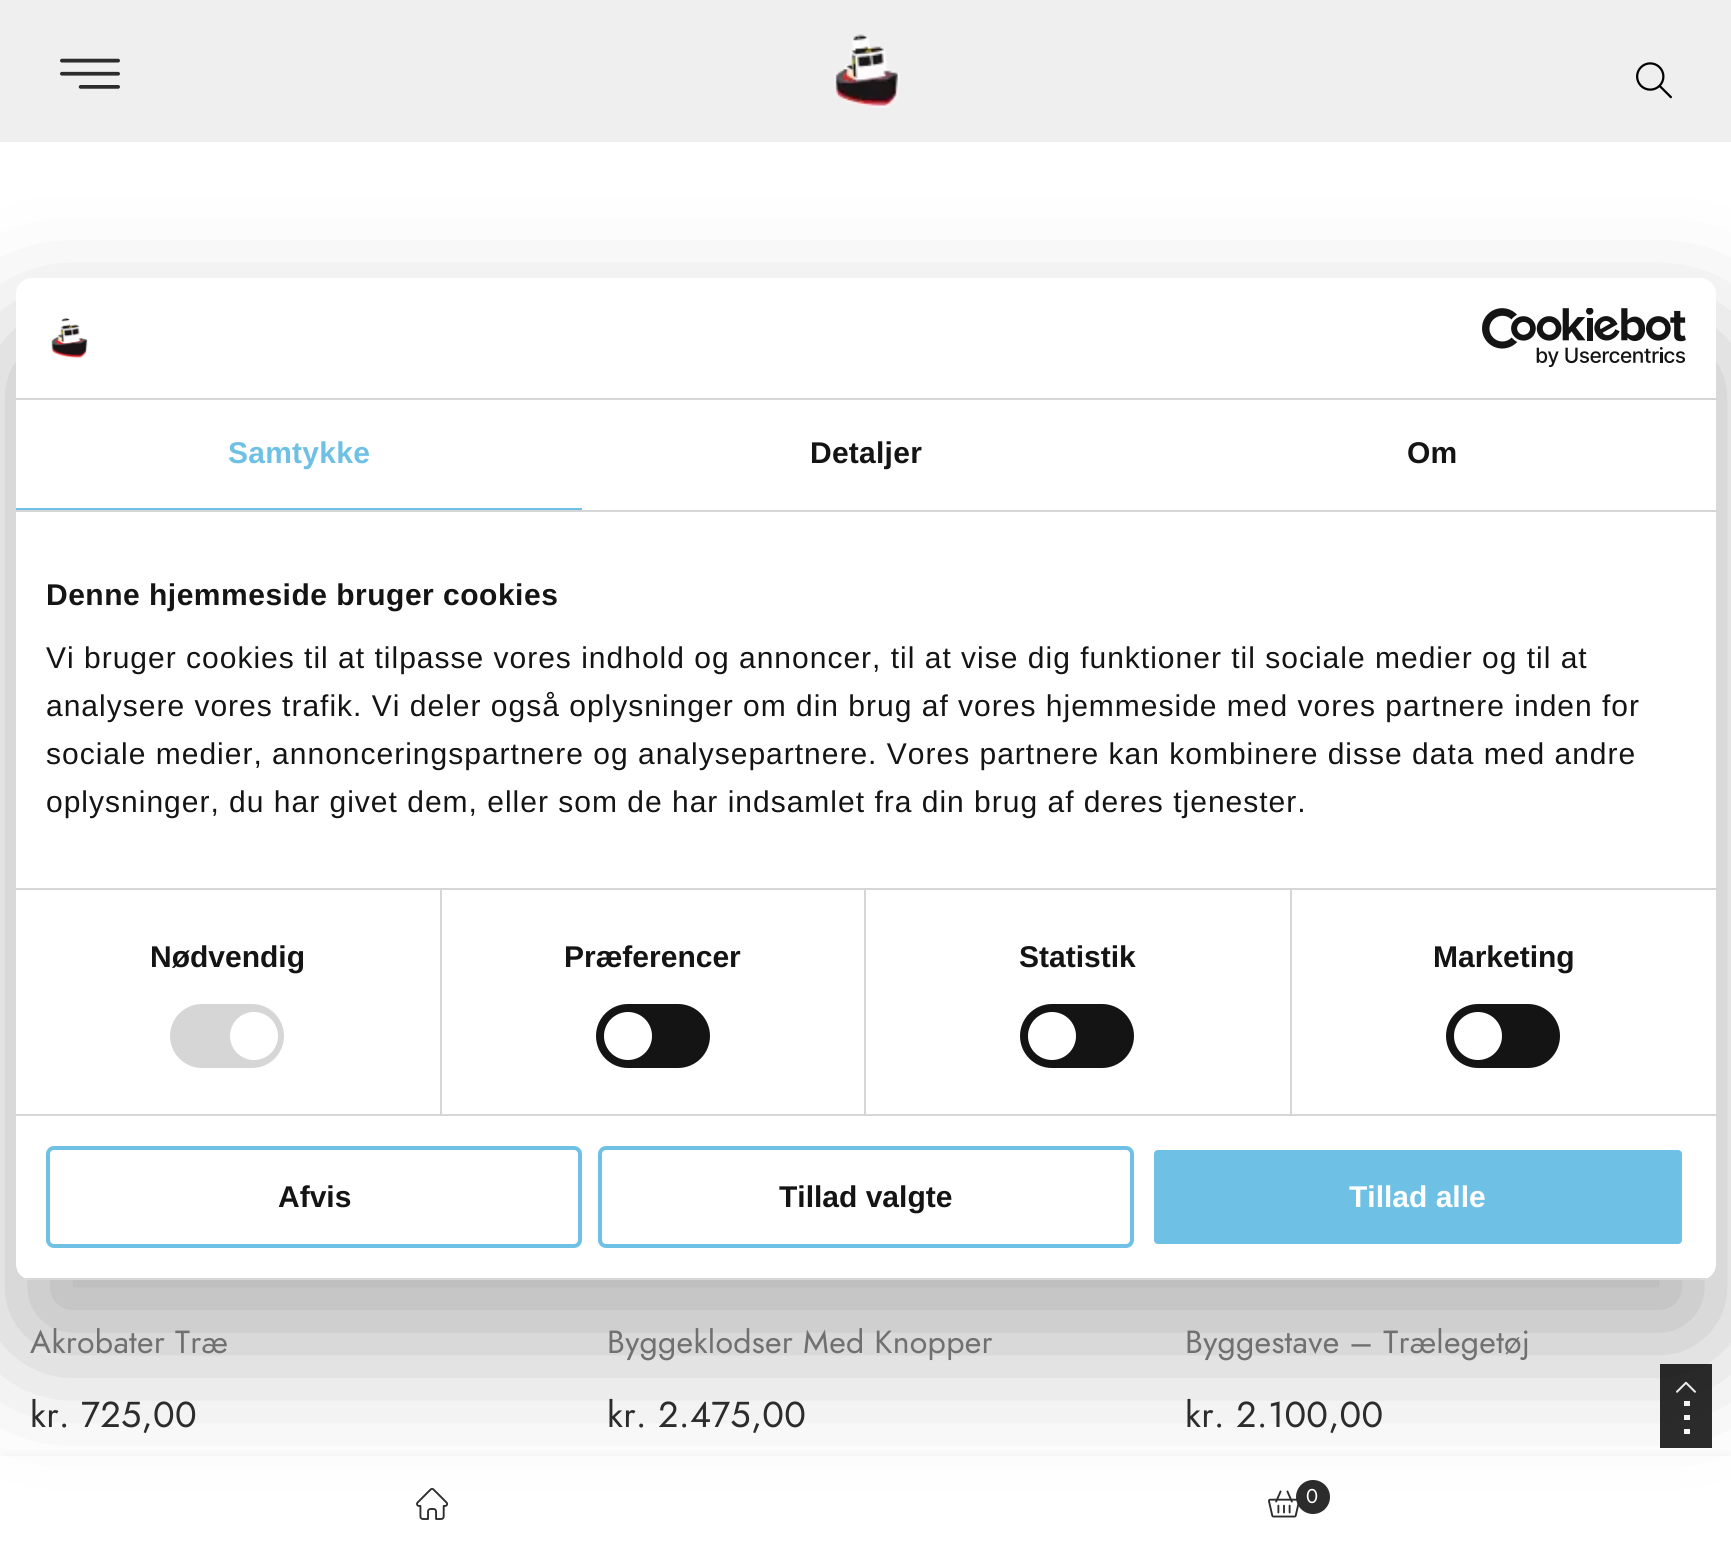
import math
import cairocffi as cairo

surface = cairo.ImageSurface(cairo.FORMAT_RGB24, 1731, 1556)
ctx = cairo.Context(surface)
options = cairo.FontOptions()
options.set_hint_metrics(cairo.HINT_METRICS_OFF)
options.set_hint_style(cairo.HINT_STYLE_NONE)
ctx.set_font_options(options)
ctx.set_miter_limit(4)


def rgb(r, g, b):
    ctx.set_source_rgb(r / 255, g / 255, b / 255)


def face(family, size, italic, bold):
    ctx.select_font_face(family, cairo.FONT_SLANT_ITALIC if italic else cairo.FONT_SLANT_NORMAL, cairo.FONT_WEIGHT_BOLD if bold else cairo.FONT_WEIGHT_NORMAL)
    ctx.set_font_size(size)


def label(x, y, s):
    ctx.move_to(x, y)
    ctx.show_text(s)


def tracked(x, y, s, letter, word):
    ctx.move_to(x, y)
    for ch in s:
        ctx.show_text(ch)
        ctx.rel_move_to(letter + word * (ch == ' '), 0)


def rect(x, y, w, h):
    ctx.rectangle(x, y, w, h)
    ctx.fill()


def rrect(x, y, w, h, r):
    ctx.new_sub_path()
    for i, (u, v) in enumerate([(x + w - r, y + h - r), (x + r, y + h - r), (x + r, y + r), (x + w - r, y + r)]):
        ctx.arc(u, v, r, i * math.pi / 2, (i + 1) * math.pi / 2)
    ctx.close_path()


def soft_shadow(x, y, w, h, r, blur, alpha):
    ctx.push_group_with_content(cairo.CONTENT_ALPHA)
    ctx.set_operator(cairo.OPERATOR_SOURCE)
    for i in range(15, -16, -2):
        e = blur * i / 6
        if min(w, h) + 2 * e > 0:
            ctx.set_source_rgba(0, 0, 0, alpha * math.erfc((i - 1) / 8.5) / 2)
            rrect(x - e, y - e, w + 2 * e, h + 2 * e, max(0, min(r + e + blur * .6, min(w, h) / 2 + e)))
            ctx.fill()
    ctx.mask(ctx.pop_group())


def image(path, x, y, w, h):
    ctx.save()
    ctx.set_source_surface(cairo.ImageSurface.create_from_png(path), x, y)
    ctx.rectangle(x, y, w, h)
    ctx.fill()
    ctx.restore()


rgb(255, 255, 255)
ctx.paint()
rgb(239, 239, 239)
rect(0, 0, 1731, 142)
rgb(0, 0, 0)
soft_shadow(0, 1456, 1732, 100, 0, 5, 0.05)
rgb(255, 255, 255)
rect(0, 1456, 1731, 100)
image('image5.png', 416, 1488, 32, 32)
image('image6.png', 1268, 1490, 31, 28)
rgb(44, 44, 44)
ctx.arc(1313, 1497, 17, 0, 2 * math.pi)
ctx.fill()
rect(1660, 1364, 52, 84)
image('image7.png', 1676, 1381, 20, 12)
rgb(255, 255, 255)
rect(1684, 1401, 6, 5)
rect(1684, 1415, 6, 5)
rect(1684, 1429, 6, 5)
rgb(0, 0, 0)
soft_shadow(16, 342, 1700, 1002, 16, 68, 0.3)
rgb(255, 255, 255)
rrect(16, 278, 1700, 1002, 16)
ctx.fill()
rgb(214, 214, 214)
rect(16, 398, 1700, 2)
image('image0.png', 51, 318, 37, 41)
image('image1.png', 1482, 308, 204, 60)
rect(16, 510, 1700, 2)
rgb(110, 193, 228)
rect(16, 508, 566, 2)
face('Liberation Sans', 30, 0, 1)
tracked(228, 463, 'Samtykke', 0.25, 0)
rgb(20, 20, 20)
tracked(810, 463, 'Detaljer', 0.25, 0)
tracked(1407, 463, 'Om', 0.25, 0)
rgb(214, 214, 214)
rect(16, 888, 1700, 2)
rgb(20, 20, 20)
tracked(46, 605, 'Denne hjemmeside bruger cookies', 0.5, 0)
face('Liberation Sans', 30, 0, 0)
tracked(46, 668, 'Vi bruger cookies til at tilpasse vores indhold og annoncer, til at vise dig funktioner til sociale medier og til at', 1, 0)
tracked(46, 716, 'analysere vores trafik. Vi deler også oplysninger om din brug af vores hjemmeside med vores partnere inden for', 1, 0)
tracked(46, 764, 'sociale medier, annonceringspartnere og analysepartnere. Vores partnere kan kombinere disse data med andre', 1, 0)
tracked(46, 812, 'oplysninger, du har givet dem, eller som de har indsamlet fra din brug af deres tjenester.', 1, 0)
rgb(214, 214, 214)
rect(16, 1114, 1700, 2)
rect(440, 890, 2, 224)
face('Liberation Sans', 30, 0, 1)
rgb(20, 20, 20)
label(150, 967, 'Nødvendig')
rgb(214, 214, 214)
rrect(170, 1004, 114, 64, 32)
ctx.fill()
rgb(255, 255, 255)
ctx.arc(254, 1036, 24, 0, 2 * math.pi)
ctx.fill()
rgb(214, 214, 214)
rect(864, 890, 2, 224)
rgb(20, 20, 20)
label(564, 967, 'Præferencer')
rrect(596, 1004, 114, 64, 32)
ctx.fill()
rgb(255, 255, 255)
ctx.arc(628, 1036, 24, 0, 2 * math.pi)
ctx.fill()
rgb(214, 214, 214)
rect(1290, 890, 2, 224)
rgb(20, 20, 20)
label(1019, 967, 'Statistik')
rrect(1020, 1004, 114, 64, 32)
ctx.fill()
rgb(255, 255, 255)
ctx.arc(1052, 1036, 24, 0, 2 * math.pi)
ctx.fill()
rgb(20, 20, 20)
label(1433, 967, 'Marketing')
rrect(1446, 1004, 114, 64, 32)
ctx.fill()
rgb(255, 255, 255)
ctx.arc(1478, 1036, 24, 0, 2 * math.pi)
ctx.fill()
ctx.save()
rrect(16, 278, 1700, 1002, 16)
ctx.clip()
rgb(214, 214, 214)
rect(16, 1278, 1700, 2)
ctx.restore()
rrect(48, 1148, 532, 98, 6)
rgb(110, 193, 228)
ctx.set_line_width(4)
ctx.stroke()
rgb(20, 20, 20)
label(278, 1207, 'Afvis')
rrect(600, 1148, 532, 98, 6)
rgb(110, 193, 228)
ctx.stroke()
rgb(20, 20, 20)
label(779, 1207, 'Tillad valgte')
rgb(110, 193, 228)
rrect(1152, 1148, 532, 98, 6)
ctx.fill_preserve()
rgb(255, 255, 255)
ctx.stroke()
label(1349, 1207, 'Tillad alle')
face('Jost', 32, 0, 0)
rgb(112, 112, 112)
tracked(30, 1353, 'Akrobater Træ', 0.3, 0)
face('Jost', 36, 0, 0)
rgb(44, 44, 44)
tracked(30, 1427, 'kr. 725,00', 0.3, 0)
face('Jost', 32, 0, 0)
rgb(112, 112, 112)
tracked(607, 1353, 'Byggeklodser Med Knopper', 0.3, 0)
face('Jost', 36, 0, 0)
rgb(44, 44, 44)
tracked(607, 1427, 'kr. 2.475,00', 0.3, 0)
face('Jost', 32, 0, 0)
rgb(112, 112, 112)
tracked(1185, 1353, 'Byggestave – Trælegetøj', 0.3, 0)
face('Jost', 36, 0, 0)
rgb(44, 44, 44)
tracked(1185, 1427, 'kr. 2.100,00', 0.3, 0)
image('image2.png', 60, 58, 60, 31)
image('image3.png', 834, 34, 66, 74)
image('image4.png', 1636, 62, 36, 37)
face('Jost', 20, 0, 0)
rgb(255, 255, 255)
tracked(1306, 1503, '0', 0.3, 0)
surface.write_to_png('render.png')
